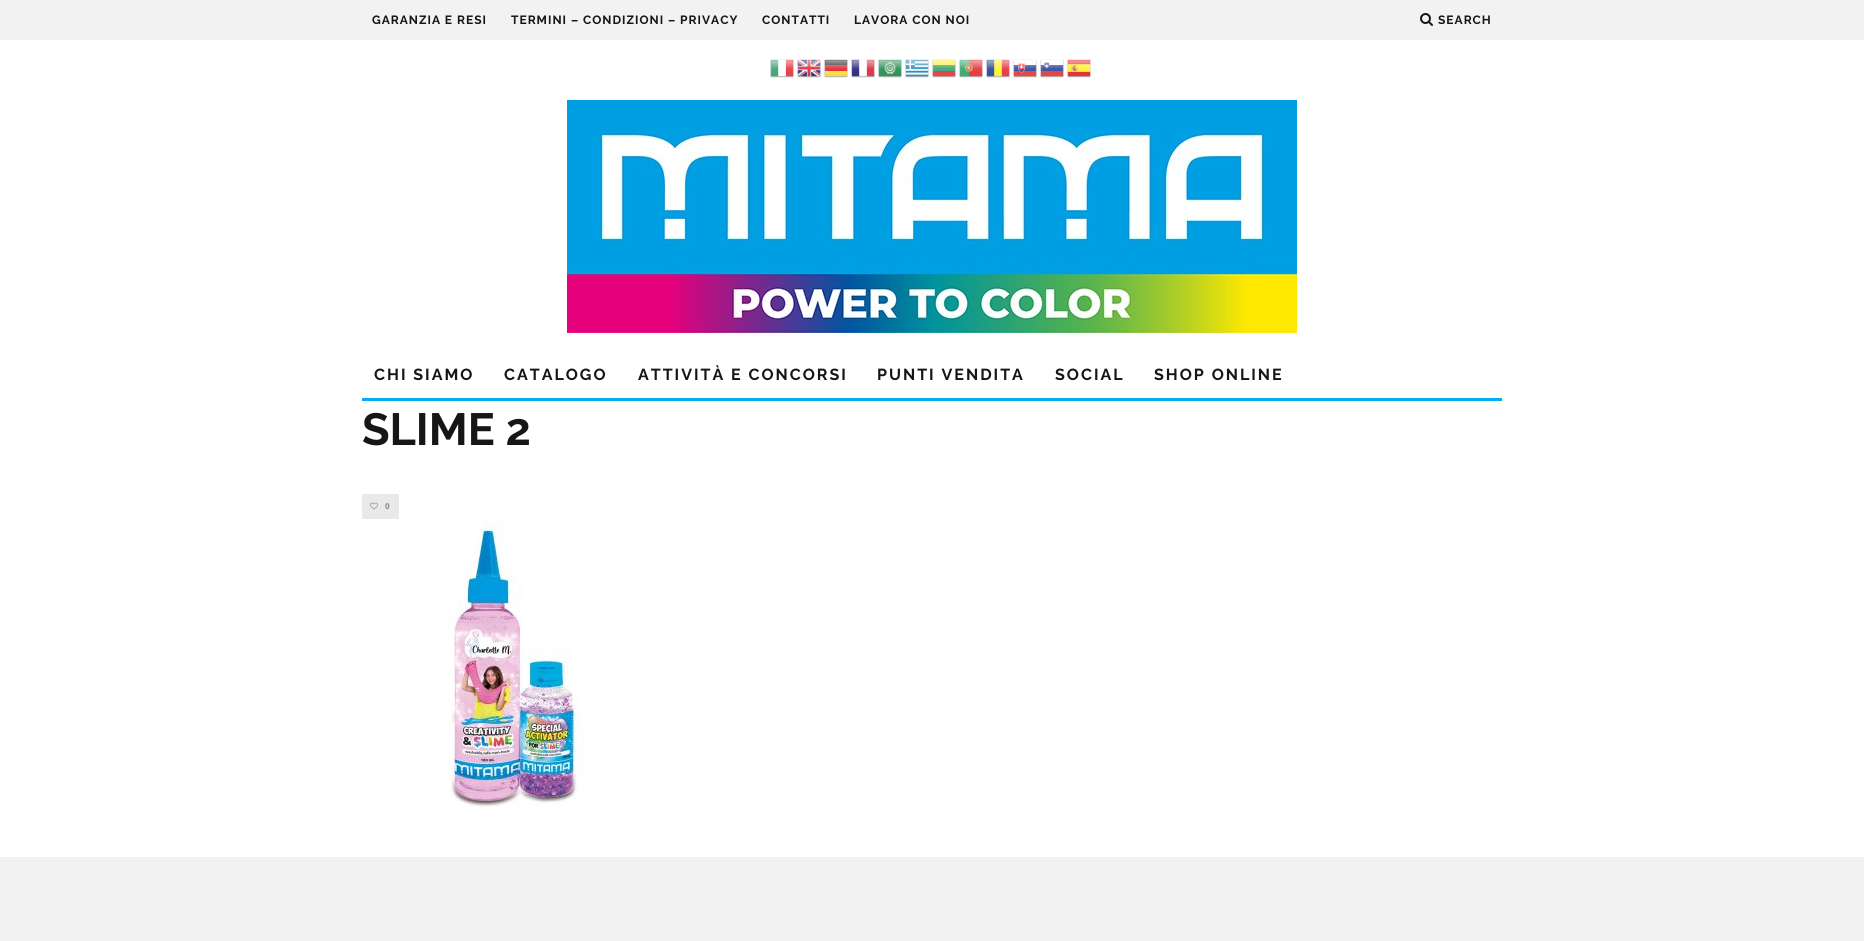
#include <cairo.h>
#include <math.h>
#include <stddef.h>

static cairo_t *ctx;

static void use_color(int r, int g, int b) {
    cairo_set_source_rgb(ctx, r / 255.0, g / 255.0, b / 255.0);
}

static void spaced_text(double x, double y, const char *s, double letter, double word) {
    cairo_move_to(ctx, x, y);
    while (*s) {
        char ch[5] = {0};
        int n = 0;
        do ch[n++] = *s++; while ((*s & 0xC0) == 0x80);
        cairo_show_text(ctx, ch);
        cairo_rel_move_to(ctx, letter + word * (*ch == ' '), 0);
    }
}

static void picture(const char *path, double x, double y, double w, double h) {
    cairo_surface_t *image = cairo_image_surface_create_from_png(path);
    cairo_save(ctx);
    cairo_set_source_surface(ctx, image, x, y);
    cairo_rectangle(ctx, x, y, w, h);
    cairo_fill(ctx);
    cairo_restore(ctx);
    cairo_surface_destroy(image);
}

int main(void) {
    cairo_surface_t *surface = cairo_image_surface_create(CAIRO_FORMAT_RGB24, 1864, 941);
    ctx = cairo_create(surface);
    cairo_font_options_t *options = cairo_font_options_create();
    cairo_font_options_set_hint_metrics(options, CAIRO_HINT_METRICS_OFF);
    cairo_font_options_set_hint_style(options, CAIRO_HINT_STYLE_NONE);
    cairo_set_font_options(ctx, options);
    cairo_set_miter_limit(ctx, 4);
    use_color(255, 255, 255);
    cairo_paint(ctx);
    use_color(242, 242, 242);
    cairo_rectangle(ctx, 0, 0, 1864, 40);
    cairo_fill(ctx);
    cairo_select_font_face(ctx, "Raleway", CAIRO_FONT_SLANT_NORMAL, CAIRO_FONT_WEIGHT_BOLD);
    cairo_set_font_size(ctx, 12);
    use_color(22, 22, 22);
    spaced_text(372, 24, "GARANZIA E RESI", 1, 0);
    spaced_text(511, 24, "TERMINI – CONDIZIONI – PRIVACY", 1, 0);
    spaced_text(762, 24, "CONTATTI", 1, 0);
    spaced_text(854, 24, "LAVORA CON NOI", 1, 0);
    picture("img1.png", 1420, 13, 13, 13);
    spaced_text(1438, 24, "SEARCH", 1, 0);
    picture("img2.png", 770, 59, 24, 19);
    picture("img3.png", 797, 59, 24, 19);
    picture("img4.png", 824, 59, 24, 19);
    picture("img5.png", 851, 59, 24, 19);
    picture("img6.png", 878, 59, 24, 19);
    picture("img7.png", 905, 59, 24, 19);
    picture("img8.png", 932, 59, 24, 19);
    picture("img9.png", 959, 59, 24, 19);
    picture("img10.png", 986, 59, 24, 19);
    picture("img11.png", 1013, 59, 24, 19);
    picture("img12.png", 1040, 59, 24, 19);
    picture("img13.png", 1067, 59, 24, 19);
    picture("img14.png", 567, 100, 730, 233);
    use_color(0, 174, 239);
    cairo_rectangle(ctx, 362, 398, 1140, 3);
    cairo_fill(ctx);
    cairo_set_font_size(ctx, 16);
    use_color(22, 22, 22);
    spaced_text(374, 380, "CHI SIAMO", 2, 0);
    spaced_text(504, 380, "CATALOGO", 2, 0);
    spaced_text(638, 380, "ATTIVITÀ E CONCORSI", 2, 0);
    spaced_text(877, 380, "PUNTI VENDITA", 2, 0);
    spaced_text(1055, 380, "SOCIAL", 2, 0);
    spaced_text(1154, 380, "SHOP ONLINE", 2, 0);
    cairo_set_font_size(ctx, 45);
    cairo_move_to(ctx, 362, 445);
    cairo_show_text(ctx, "SLIME 2");
    use_color(233, 233, 233);
    cairo_rectangle(ctx, 362, 494, 37, 25);
    cairo_fill(ctx);
    picture("img15.png", 370, 502, 8, 8);
    cairo_select_font_face(ctx, "Open Sans", CAIRO_FONT_SLANT_NORMAL, CAIRO_FONT_WEIGHT_BOLD);
    cairo_set_font_size(ctx, 8);
    use_color(134, 134, 134);
    spaced_text(385, 509, "0", 2, 0);
    picture("img16.png", 442, 519, 144, 288);
    use_color(242, 242, 242);
    cairo_rectangle(ctx, 0, 857, 1864, 84);
    cairo_fill(ctx);
    cairo_surface_write_to_png(surface, "result.png");
    cairo_font_options_destroy(options);
    cairo_destroy(ctx);
    cairo_surface_destroy(surface);
    return 0;
}
